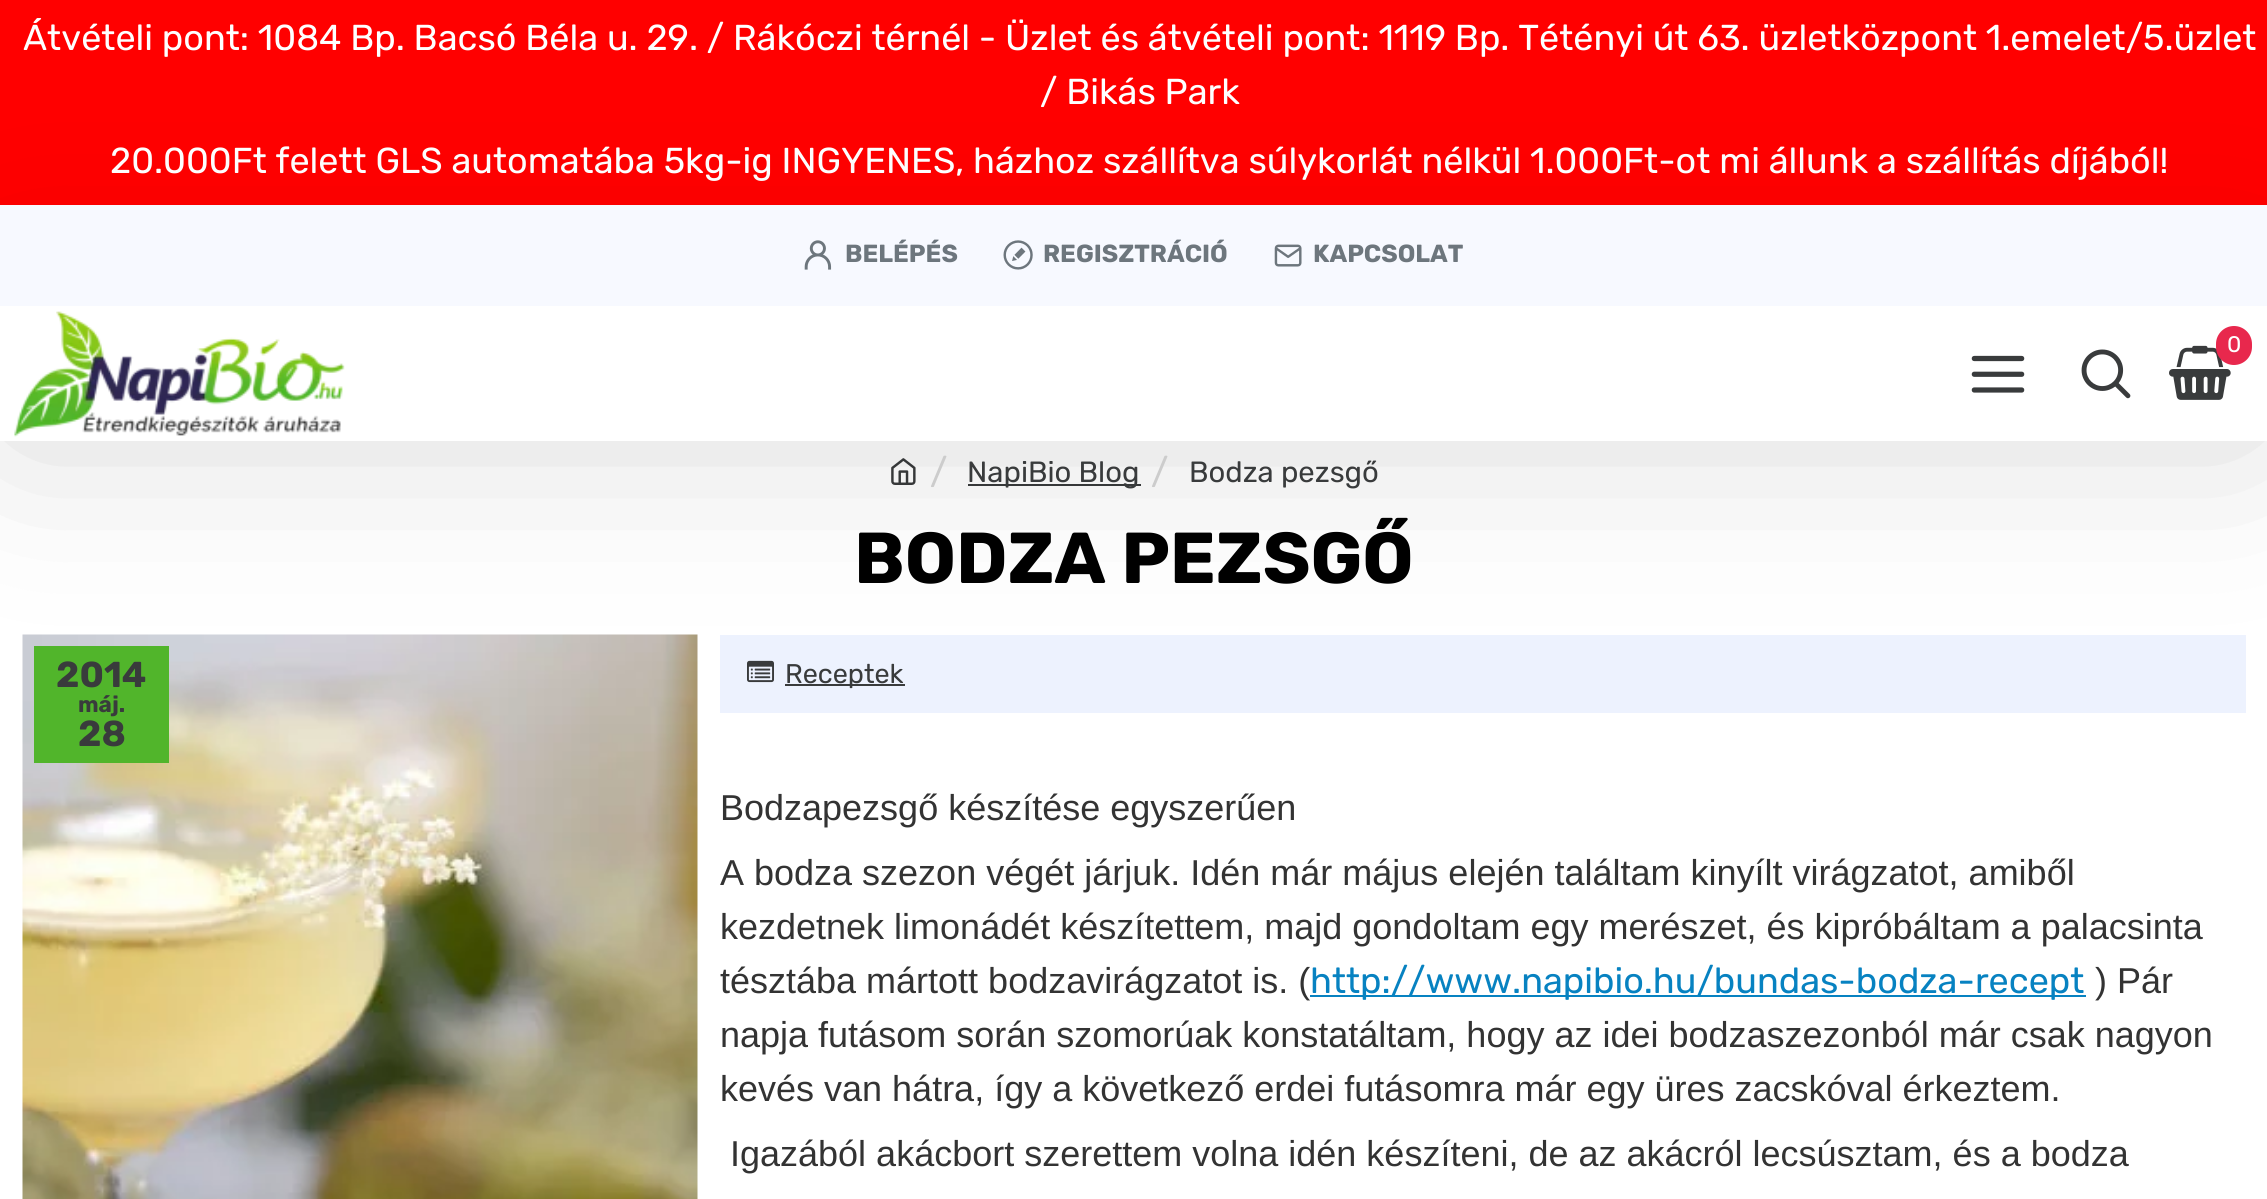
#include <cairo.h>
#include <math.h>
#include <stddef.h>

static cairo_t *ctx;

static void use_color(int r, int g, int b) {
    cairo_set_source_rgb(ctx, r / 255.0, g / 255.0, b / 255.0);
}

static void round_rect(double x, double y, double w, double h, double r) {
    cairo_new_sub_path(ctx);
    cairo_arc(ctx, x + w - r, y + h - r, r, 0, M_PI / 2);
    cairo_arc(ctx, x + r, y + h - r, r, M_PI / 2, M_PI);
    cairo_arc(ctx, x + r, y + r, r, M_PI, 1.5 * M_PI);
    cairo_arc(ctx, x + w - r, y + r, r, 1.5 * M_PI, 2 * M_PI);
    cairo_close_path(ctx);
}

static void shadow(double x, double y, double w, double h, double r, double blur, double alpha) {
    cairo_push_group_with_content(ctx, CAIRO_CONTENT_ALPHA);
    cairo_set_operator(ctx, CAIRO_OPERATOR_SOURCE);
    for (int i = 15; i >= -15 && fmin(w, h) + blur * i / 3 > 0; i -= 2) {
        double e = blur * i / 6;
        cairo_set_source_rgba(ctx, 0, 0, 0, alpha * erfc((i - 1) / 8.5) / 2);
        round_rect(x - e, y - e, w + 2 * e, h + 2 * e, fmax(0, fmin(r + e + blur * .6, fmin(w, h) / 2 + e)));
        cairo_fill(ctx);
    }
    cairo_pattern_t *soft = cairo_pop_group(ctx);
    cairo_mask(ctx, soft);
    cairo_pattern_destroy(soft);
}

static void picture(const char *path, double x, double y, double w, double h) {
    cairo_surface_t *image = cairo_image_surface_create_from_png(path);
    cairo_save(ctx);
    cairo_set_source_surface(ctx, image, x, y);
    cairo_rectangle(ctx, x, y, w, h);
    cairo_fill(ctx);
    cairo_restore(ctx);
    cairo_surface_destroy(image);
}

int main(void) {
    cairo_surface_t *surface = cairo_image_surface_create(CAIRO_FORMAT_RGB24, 2267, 1199);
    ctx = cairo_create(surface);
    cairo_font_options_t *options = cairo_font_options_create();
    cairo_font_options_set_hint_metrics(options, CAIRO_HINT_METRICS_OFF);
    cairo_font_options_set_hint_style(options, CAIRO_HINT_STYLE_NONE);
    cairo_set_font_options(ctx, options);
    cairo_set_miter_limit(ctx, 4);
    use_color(255, 255, 255);
    cairo_paint(ctx);
    use_color(255, 0, 0);
    cairo_rectangle(ctx, 0, 0, 2267, 205);
    cairo_fill(ctx);
    cairo_select_font_face(ctx, "Rubik", CAIRO_FONT_SLANT_NORMAL, CAIRO_FONT_WEIGHT_NORMAL);
    cairo_set_font_size(ctx, 36);
    use_color(255, 255, 255);
    cairo_move_to(ctx, 23, 50);
    cairo_show_text(ctx, "Átvételi pont: 1084 Bp. Bacsó Béla u. 29. / Rákóczi térnél - Üzlet és átvételi pont: 1119 Bp. Tétényi út 63. üzletközpont 1.emelet/5.üzlet");
    cairo_move_to(ctx, 1040, 104);
    cairo_show_text(ctx, "/ Bikás Park");
    cairo_move_to(ctx, 110, 173);
    cairo_show_text(ctx, "20.000Ft felett GLS automatába 5kg-ig INGYENES, házhoz szállítva súlykorlát nélkül 1.000Ft-ot mi állunk a szállítás díjából!");
    picture("img8.png", 891, 458, 25, 27);
    use_color(57, 59, 60);
    cairo_rectangle(ctx, 968, 484, 173, 2);
    cairo_fill(ctx);
    picture("img9.png", 22, 634, 676, 565);
    use_color(81, 181, 43);
    cairo_rectangle(ctx, 34, 646, 135, 117);
    cairo_fill(ctx);
    use_color(237, 242, 254);
    cairo_rectangle(ctx, 720, 635, 1526, 78);
    cairo_fill(ctx);
    picture("img10.png", 747, 660, 27, 23);
    use_color(57, 59, 60);
    cairo_rectangle(ctx, 785, 684, 120, 2);
    cairo_fill(ctx);
    use_color(0, 0, 0);
    shadow(23, 329, 2223, 90, 0, 95.5, 0.2);
    use_color(247, 249, 255);
    cairo_rectangle(ctx, 0, 205, 2267, 101);
    cairo_fill(ctx);
    picture("img1.png", 804, 240, 28, 30);
    cairo_select_font_face(ctx, "Rubik", CAIRO_FONT_SLANT_NORMAL, CAIRO_FONT_WEIGHT_BOLD);
    cairo_set_font_size(ctx, 24.75);
    use_color(109, 118, 125);
    cairo_move_to(ctx, 845, 262);
    cairo_show_text(ctx, "BELÉPÉS");
    picture("img2.png", 1003, 240, 30, 30);
    cairo_move_to(ctx, 1043, 262);
    cairo_show_text(ctx, "REGISZTRÁCIÓ");
    picture("img3.png", 1274, 244, 28, 23);
    cairo_move_to(ctx, 1313, 262);
    cairo_show_text(ctx, "KAPCSOLAT");
    use_color(255, 255, 255);
    cairo_rectangle(ctx, 0, 306, 2267, 135);
    cairo_fill(ctx);
    picture("img4.png", 14, 311, 331, 126);
    picture("img5.png", 2169, 345, 62, 55);
    use_color(232, 40, 77);
    round_rect(2216, 326, 36, 39, 18);
    cairo_fill(ctx);
    cairo_select_font_face(ctx, "Rubik", CAIRO_FONT_SLANT_NORMAL, CAIRO_FONT_WEIGHT_NORMAL);
    cairo_set_font_size(ctx, 22.5);
    use_color(255, 255, 255);
    cairo_move_to(ctx, 2227, 352);
    cairo_show_text(ctx, "0");
    picture("img6.png", 1971, 355, 54, 38);
    picture("img7.png", 2081, 349, 50, 50);
    cairo_set_font_size(ctx, 36);
    use_color(204, 204, 204);
    cairo_move_to(ctx, 930, 484);
    cairo_show_text(ctx, "/");
    cairo_set_font_size(ctx, 29.25);
    use_color(57, 59, 60);
    cairo_move_to(ctx, 967, 482);
    cairo_show_text(ctx, "NapiBio Blog");
    cairo_set_font_size(ctx, 36);
    use_color(204, 204, 204);
    cairo_move_to(ctx, 1151, 484);
    cairo_show_text(ctx, "/");
    cairo_set_font_size(ctx, 29.25);
    use_color(57, 59, 60);
    cairo_move_to(ctx, 1189, 482);
    cairo_show_text(ctx, "Bodza pezsgő");
    cairo_select_font_face(ctx, "Rubik", CAIRO_FONT_SLANT_NORMAL, CAIRO_FONT_WEIGHT_BOLD);
    cairo_set_font_size(ctx, 72);
    use_color(0, 0, 0);
    cairo_move_to(ctx, 854, 583);
    cairo_show_text(ctx, "BODZA PEZSGŐ");
    cairo_set_font_size(ctx, 36);
    use_color(57, 59, 60);
    cairo_move_to(ctx, 56, 687);
    cairo_show_text(ctx, "2014");
    cairo_set_font_size(ctx, 22.5);
    cairo_move_to(ctx, 78, 712);
    cairo_show_text(ctx, "máj.");
    cairo_set_font_size(ctx, 36);
    cairo_move_to(ctx, 78, 746);
    cairo_show_text(ctx, "28");
    cairo_select_font_face(ctx, "Rubik", CAIRO_FONT_SLANT_NORMAL, CAIRO_FONT_WEIGHT_NORMAL);
    cairo_set_font_size(ctx, 27);
    cairo_move_to(ctx, 785, 683);
    cairo_show_text(ctx, "Receptek");
    cairo_select_font_face(ctx, "Liberation Sans", CAIRO_FONT_SLANT_NORMAL, CAIRO_FONT_WEIGHT_NORMAL);
    cairo_set_font_size(ctx, 36);
    use_color(51, 51, 51);
    cairo_move_to(ctx, 720, 820);
    cairo_show_text(ctx, "Bodzapezsgő készítése egyszerűen");
    cairo_move_to(ctx, 720, 885);
    cairo_show_text(ctx, "A bodza szezon végét járjuk. Idén már május elején találtam kinyílt virágzatot, amiből");
    cairo_move_to(ctx, 720, 939);
    cairo_show_text(ctx, "kezdetnek limonádét készítettem, majd gondoltam egy merészet, és kipróbáltam a palacsinta");
    cairo_move_to(ctx, 720, 993);
    cairo_show_text(ctx, "tésztába mártott bodzavirágzatot is. (");
    use_color(7, 130, 193);
    cairo_rectangle(ctx, 1310, 995, 776, 2);
    cairo_fill(ctx);
    cairo_select_font_face(ctx, "Rubik", CAIRO_FONT_SLANT_NORMAL, CAIRO_FONT_WEIGHT_NORMAL);
    cairo_move_to(ctx, 1310, 993);
    cairo_show_text(ctx, "http://www.napibio.hu/bundas-bodza-recept");
    cairo_select_font_face(ctx, "Liberation Sans", CAIRO_FONT_SLANT_NORMAL, CAIRO_FONT_WEIGHT_NORMAL);
    use_color(51, 51, 51);
    cairo_move_to(ctx, 2095, 993);
    cairo_show_text(ctx, ") Pár");
    cairo_move_to(ctx, 720, 1047);
    cairo_show_text(ctx, "napja futásom során szomorúak konstatáltam, hogy az idei bodzaszezonból már csak nagyon");
    cairo_move_to(ctx, 720, 1101);
    cairo_show_text(ctx, "kevés van hátra, így a következő erdei futásomra már egy üres zacskóval érkeztem.");
    cairo_move_to(ctx, 730, 1166);
    cairo_show_text(ctx, "Igazából akácbort szerettem volna idén készíteni, de az akácról lecsúsztam, és a bodza");
    cairo_surface_write_to_png(surface, "result.png");
    cairo_font_options_destroy(options);
    cairo_destroy(ctx);
    cairo_surface_destroy(surface);
    return 0;
}
